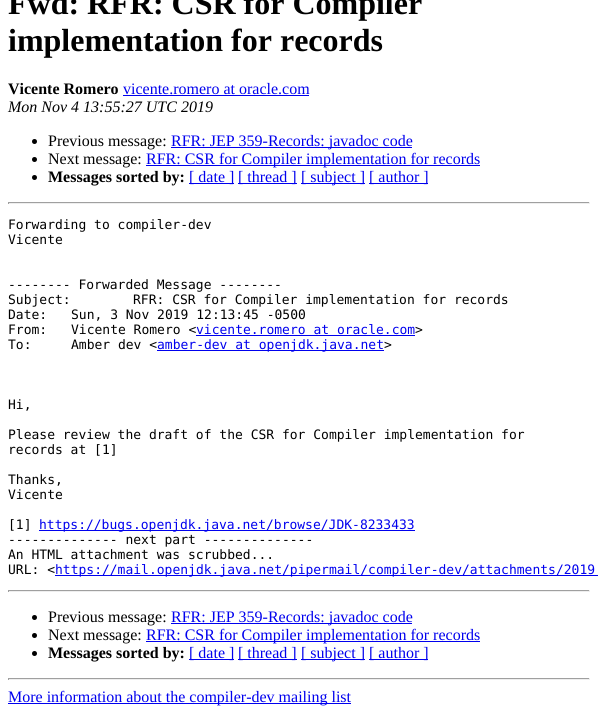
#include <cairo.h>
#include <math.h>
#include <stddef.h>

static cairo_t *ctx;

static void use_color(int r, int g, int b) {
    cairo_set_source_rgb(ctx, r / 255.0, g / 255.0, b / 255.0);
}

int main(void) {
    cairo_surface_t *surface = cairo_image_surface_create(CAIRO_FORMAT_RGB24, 598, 712);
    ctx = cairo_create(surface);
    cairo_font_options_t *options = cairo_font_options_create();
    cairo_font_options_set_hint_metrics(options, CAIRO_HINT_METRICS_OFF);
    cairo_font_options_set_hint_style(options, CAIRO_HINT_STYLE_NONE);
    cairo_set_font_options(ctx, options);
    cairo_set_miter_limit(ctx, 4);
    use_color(255, 255, 255);
    cairo_paint(ctx);
    cairo_select_font_face(ctx, "Liberation Serif", CAIRO_FONT_SLANT_NORMAL, CAIRO_FONT_WEIGHT_BOLD);
    cairo_set_font_size(ctx, 32);
    use_color(0, 0, 0);
    cairo_move_to(ctx, 8, 14);
    cairo_show_text(ctx, "Fwd: RFR: CSR for Compiler");
    cairo_move_to(ctx, 8, 51);
    cairo_show_text(ctx, "implementation for records");
    cairo_set_font_size(ctx, 16);
    cairo_move_to(ctx, 8, 94);
    cairo_show_text(ctx, "Vicente Romero");
    cairo_select_font_face(ctx, "Liberation Serif", CAIRO_FONT_SLANT_NORMAL, CAIRO_FONT_WEIGHT_NORMAL);
    use_color(0, 0, 238);
    cairo_move_to(ctx, 123, 94);
    cairo_show_text(ctx, "vicente.romero at oracle.com");
    cairo_rectangle(ctx, 123, 95, 186, 1);
    cairo_fill(ctx);
    cairo_select_font_face(ctx, "Liberation Serif", CAIRO_FONT_SLANT_ITALIC, CAIRO_FONT_WEIGHT_NORMAL);
    use_color(0, 0, 0);
    cairo_move_to(ctx, 8, 112);
    cairo_show_text(ctx, "Mon Nov 4 13:55:27 UTC 2019");
    cairo_new_path(ctx);
    cairo_arc(ctx, 34.5, 141.5, 2.5, 0, 2 * M_PI);
    cairo_fill(ctx);
    cairo_select_font_face(ctx, "Liberation Serif", CAIRO_FONT_SLANT_NORMAL, CAIRO_FONT_WEIGHT_NORMAL);
    cairo_move_to(ctx, 48, 146);
    cairo_show_text(ctx, "Previous message:");
    use_color(0, 0, 238);
    cairo_rectangle(ctx, 171, 147, 241, 1);
    cairo_fill(ctx);
    cairo_move_to(ctx, 171, 146);
    cairo_show_text(ctx, "RFR: JEP 359-Records: javadoc code");
    use_color(0, 0, 0);
    cairo_new_path(ctx);
    cairo_arc(ctx, 34.5, 159.5, 2.5, 0, 2 * M_PI);
    cairo_fill(ctx);
    cairo_move_to(ctx, 48, 164);
    cairo_show_text(ctx, "Next message:");
    use_color(0, 0, 238);
    cairo_rectangle(ctx, 146, 165, 334, 1);
    cairo_fill(ctx);
    cairo_move_to(ctx, 146, 164);
    cairo_show_text(ctx, "RFR: CSR for Compiler implementation for records");
    use_color(0, 0, 0);
    cairo_new_path(ctx);
    cairo_arc(ctx, 34.5, 177.5, 2.5, 0, 2 * M_PI);
    cairo_fill(ctx);
    cairo_select_font_face(ctx, "Liberation Serif", CAIRO_FONT_SLANT_NORMAL, CAIRO_FONT_WEIGHT_BOLD);
    cairo_move_to(ctx, 48, 182);
    cairo_show_text(ctx, "Messages sorted by:");
    use_color(0, 0, 238);
    cairo_rectangle(ctx, 189, 183, 45, 1);
    cairo_fill(ctx);
    cairo_select_font_face(ctx, "Liberation Serif", CAIRO_FONT_SLANT_NORMAL, CAIRO_FONT_WEIGHT_NORMAL);
    cairo_move_to(ctx, 189, 182);
    cairo_show_text(ctx, "[ date ]");
    cairo_rectangle(ctx, 238, 183, 59, 1);
    cairo_fill(ctx);
    cairo_move_to(ctx, 238, 182);
    cairo_show_text(ctx, "[ thread ]");
    cairo_rectangle(ctx, 301, 183, 64, 1);
    cairo_fill(ctx);
    cairo_move_to(ctx, 301, 182);
    cairo_show_text(ctx, "[ subject ]");
    cairo_rectangle(ctx, 369, 183, 59, 1);
    cairo_fill(ctx);
    cairo_move_to(ctx, 369, 182);
    cairo_show_text(ctx, "[ author ]");
    use_color(159, 159, 159);
    cairo_rectangle(ctx, 8, 202, 582, 1);
    cairo_fill(ctx);
    use_color(238, 238, 238);
    cairo_rectangle(ctx, 589, 202, 1, 2);
    cairo_fill(ctx);
    cairo_rectangle(ctx, 8, 203, 582, 1);
    cairo_fill(ctx);
    use_color(159, 159, 159);
    cairo_rectangle(ctx, 8, 202, 1, 2);
    cairo_fill(ctx);
    cairo_select_font_face(ctx, "DejaVu Sans Mono", CAIRO_FONT_SLANT_NORMAL, CAIRO_FONT_WEIGHT_NORMAL);
    cairo_set_font_size(ctx, 13);
    use_color(0, 0, 0);
    cairo_move_to(ctx, 8, 229);
    cairo_show_text(ctx, "Forwarding to compiler-dev");
    cairo_move_to(ctx, 8, 244);
    cairo_show_text(ctx, "Vicente");
    cairo_move_to(ctx, 8, 289);
    cairo_show_text(ctx, "-------- Forwarded Message --------");
    cairo_move_to(ctx, 8, 304);
    cairo_show_text(ctx, "Subject:");
    cairo_move_to(ctx, 133, 304);
    cairo_show_text(ctx, "RFR: CSR for Compiler implementation for records");
    cairo_move_to(ctx, 8, 319);
    cairo_show_text(ctx, "Date:");
    cairo_move_to(ctx, 71, 319);
    cairo_show_text(ctx, "Sun, 3 Nov 2019 12:13:45 -0500");
    cairo_move_to(ctx, 8, 334);
    cairo_show_text(ctx, "From:");
    cairo_move_to(ctx, 71, 334);
    cairo_show_text(ctx, "Vicente Romero <");
    use_color(0, 0, 238);
    cairo_move_to(ctx, 196, 334);
    cairo_show_text(ctx, "vicente.romero at oracle.com");
    cairo_rectangle(ctx, 196, 335, 219, 1);
    cairo_fill(ctx);
    use_color(0, 0, 0);
    cairo_move_to(ctx, 415, 334);
    cairo_show_text(ctx, ">");
    cairo_move_to(ctx, 8, 349);
    cairo_show_text(ctx, "To:");
    cairo_move_to(ctx, 71, 349);
    cairo_show_text(ctx, "Amber dev <");
    use_color(0, 0, 238);
    cairo_rectangle(ctx, 157, 350, 227, 1);
    cairo_fill(ctx);
    cairo_move_to(ctx, 157, 349);
    cairo_show_text(ctx, "amber-dev at openjdk.java.net");
    use_color(0, 0, 0);
    cairo_move_to(ctx, 384, 349);
    cairo_show_text(ctx, ">");
    cairo_move_to(ctx, 8, 409);
    cairo_show_text(ctx, "Hi,");
    cairo_move_to(ctx, 8, 439);
    cairo_show_text(ctx, "Please review the draft of the CSR for Compiler implementation for");
    cairo_move_to(ctx, 8, 454);
    cairo_show_text(ctx, "records at [1]");
    cairo_move_to(ctx, 8, 484);
    cairo_show_text(ctx, "Thanks,");
    cairo_move_to(ctx, 8, 499);
    cairo_show_text(ctx, "Vicente");
    cairo_move_to(ctx, 8, 529);
    cairo_show_text(ctx, "[1]");
    use_color(0, 0, 238);
    cairo_rectangle(ctx, 39, 530, 376, 1);
    cairo_fill(ctx);
    cairo_move_to(ctx, 39, 529);
    cairo_show_text(ctx, "https://bugs.openjdk.java.net/browse/JDK-8233433");
    use_color(0, 0, 0);
    cairo_move_to(ctx, 8, 544);
    cairo_show_text(ctx, "-------------- next part --------------");
    cairo_move_to(ctx, 8, 559);
    cairo_show_text(ctx, "An HTML attachment was scrubbed...");
    cairo_move_to(ctx, 8, 574);
    cairo_show_text(ctx, "URL: <");
    use_color(0, 0, 238);
    cairo_rectangle(ctx, 55, 575, 543, 1);
    cairo_fill(ctx);
    cairo_move_to(ctx, 55, 574);
    cairo_show_text(ctx, "https://mail.openjdk.java.net/pipermail/compiler-dev/attachments/2019");
    use_color(159, 159, 159);
    cairo_rectangle(ctx, 8, 590, 582, 1);
    cairo_fill(ctx);
    use_color(238, 238, 238);
    cairo_rectangle(ctx, 589, 590, 1, 2);
    cairo_fill(ctx);
    cairo_rectangle(ctx, 8, 591, 582, 1);
    cairo_fill(ctx);
    use_color(159, 159, 159);
    cairo_rectangle(ctx, 8, 590, 1, 2);
    cairo_fill(ctx);
    use_color(0, 0, 0);
    cairo_arc(ctx, 34.5, 617.5, 2.5, 0, 2 * M_PI);
    cairo_fill(ctx);
    cairo_select_font_face(ctx, "Liberation Serif", CAIRO_FONT_SLANT_NORMAL, CAIRO_FONT_WEIGHT_NORMAL);
    cairo_set_font_size(ctx, 16);
    cairo_move_to(ctx, 48, 622);
    cairo_show_text(ctx, "Previous message:");
    use_color(0, 0, 238);
    cairo_rectangle(ctx, 171, 623, 241, 1);
    cairo_fill(ctx);
    cairo_move_to(ctx, 171, 622);
    cairo_show_text(ctx, "RFR: JEP 359-Records: javadoc code");
    use_color(0, 0, 0);
    cairo_new_path(ctx);
    cairo_arc(ctx, 34.5, 635.5, 2.5, 0, 2 * M_PI);
    cairo_fill(ctx);
    cairo_move_to(ctx, 48, 640);
    cairo_show_text(ctx, "Next message:");
    use_color(0, 0, 238);
    cairo_rectangle(ctx, 146, 641, 334, 1);
    cairo_fill(ctx);
    cairo_move_to(ctx, 146, 640);
    cairo_show_text(ctx, "RFR: CSR for Compiler implementation for records");
    use_color(0, 0, 0);
    cairo_new_path(ctx);
    cairo_arc(ctx, 34.5, 653.5, 2.5, 0, 2 * M_PI);
    cairo_fill(ctx);
    cairo_select_font_face(ctx, "Liberation Serif", CAIRO_FONT_SLANT_NORMAL, CAIRO_FONT_WEIGHT_BOLD);
    cairo_move_to(ctx, 48, 658);
    cairo_show_text(ctx, "Messages sorted by:");
    use_color(0, 0, 238);
    cairo_rectangle(ctx, 189, 659, 45, 1);
    cairo_fill(ctx);
    cairo_select_font_face(ctx, "Liberation Serif", CAIRO_FONT_SLANT_NORMAL, CAIRO_FONT_WEIGHT_NORMAL);
    cairo_move_to(ctx, 189, 658);
    cairo_show_text(ctx, "[ date ]");
    cairo_rectangle(ctx, 238, 659, 59, 1);
    cairo_fill(ctx);
    cairo_move_to(ctx, 238, 658);
    cairo_show_text(ctx, "[ thread ]");
    cairo_rectangle(ctx, 301, 659, 64, 1);
    cairo_fill(ctx);
    cairo_move_to(ctx, 301, 658);
    cairo_show_text(ctx, "[ subject ]");
    cairo_rectangle(ctx, 369, 659, 59, 1);
    cairo_fill(ctx);
    cairo_move_to(ctx, 369, 658);
    cairo_show_text(ctx, "[ author ]");
    use_color(159, 159, 159);
    cairo_rectangle(ctx, 8, 678, 582, 1);
    cairo_fill(ctx);
    use_color(238, 238, 238);
    cairo_rectangle(ctx, 589, 678, 1, 2);
    cairo_fill(ctx);
    cairo_rectangle(ctx, 8, 679, 582, 1);
    cairo_fill(ctx);
    use_color(159, 159, 159);
    cairo_rectangle(ctx, 8, 678, 1, 2);
    cairo_fill(ctx);
    use_color(0, 0, 238);
    cairo_rectangle(ctx, 8, 703, 343, 1);
    cairo_fill(ctx);
    cairo_move_to(ctx, 8, 702);
    cairo_show_text(ctx, "More information about the compiler-dev mailing list");
    cairo_surface_write_to_png(surface, "result.png");
    cairo_font_options_destroy(options);
    cairo_destroy(ctx);
    cairo_surface_destroy(surface);
    return 0;
}
